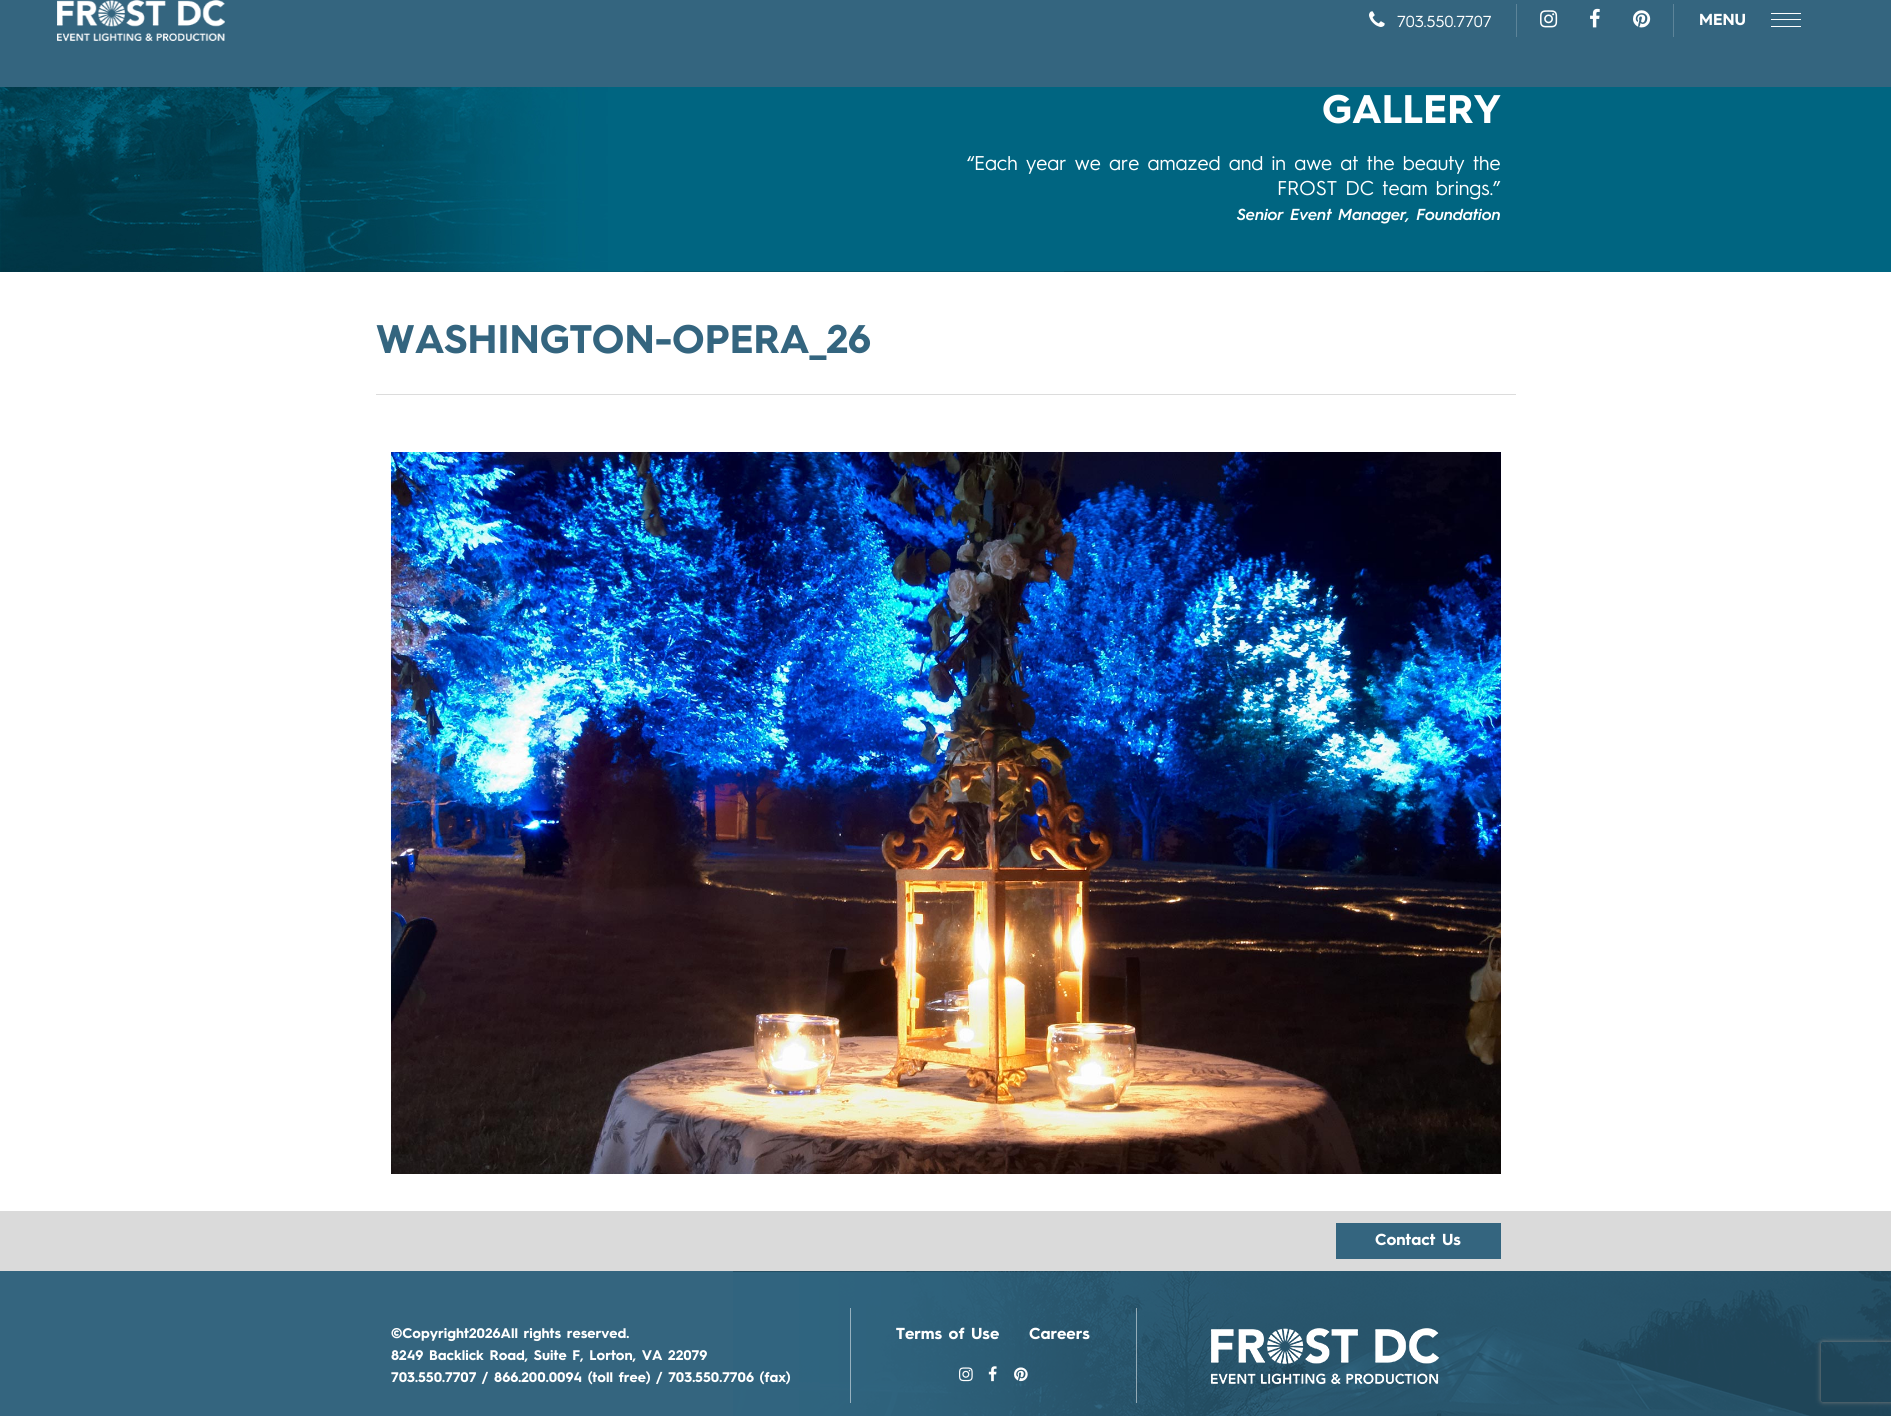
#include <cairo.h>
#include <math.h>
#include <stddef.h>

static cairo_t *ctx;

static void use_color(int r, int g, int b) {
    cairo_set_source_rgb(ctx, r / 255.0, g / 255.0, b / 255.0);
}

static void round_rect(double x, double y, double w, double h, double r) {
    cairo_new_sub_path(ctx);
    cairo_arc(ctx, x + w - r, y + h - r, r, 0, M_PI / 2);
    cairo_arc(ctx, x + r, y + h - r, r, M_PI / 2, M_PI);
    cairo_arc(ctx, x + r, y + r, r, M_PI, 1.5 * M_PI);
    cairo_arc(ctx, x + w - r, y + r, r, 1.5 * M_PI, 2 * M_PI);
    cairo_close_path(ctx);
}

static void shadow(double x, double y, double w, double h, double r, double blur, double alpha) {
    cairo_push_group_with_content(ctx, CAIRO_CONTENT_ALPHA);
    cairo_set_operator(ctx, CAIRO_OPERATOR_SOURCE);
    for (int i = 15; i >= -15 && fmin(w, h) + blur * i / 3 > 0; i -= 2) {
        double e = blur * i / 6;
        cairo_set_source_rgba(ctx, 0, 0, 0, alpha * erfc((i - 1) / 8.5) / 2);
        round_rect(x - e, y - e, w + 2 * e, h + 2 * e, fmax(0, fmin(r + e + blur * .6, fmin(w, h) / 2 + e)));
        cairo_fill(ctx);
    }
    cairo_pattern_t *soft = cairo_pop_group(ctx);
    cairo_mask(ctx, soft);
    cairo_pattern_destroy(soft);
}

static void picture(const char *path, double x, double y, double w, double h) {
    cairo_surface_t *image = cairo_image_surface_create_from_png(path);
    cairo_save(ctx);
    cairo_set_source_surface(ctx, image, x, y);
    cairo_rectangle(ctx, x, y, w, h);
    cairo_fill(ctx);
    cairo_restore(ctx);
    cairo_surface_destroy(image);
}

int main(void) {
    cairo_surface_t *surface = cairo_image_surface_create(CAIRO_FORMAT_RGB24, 1891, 1416);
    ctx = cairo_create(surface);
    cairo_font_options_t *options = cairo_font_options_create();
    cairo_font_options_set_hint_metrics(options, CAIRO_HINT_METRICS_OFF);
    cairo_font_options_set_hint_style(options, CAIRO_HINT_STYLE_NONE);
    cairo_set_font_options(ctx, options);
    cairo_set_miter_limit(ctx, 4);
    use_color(255, 255, 255);
    cairo_paint(ctx);
    use_color(52, 101, 127);
    cairo_rectangle(ctx, 0, 0, 1891, 87);
    cairo_fill(ctx);
    picture("img1.png", 57, 0, 168, 41);
    picture("img2.png", 1369, 11, 16, 16);
    cairo_select_font_face(ctx, "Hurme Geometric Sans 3", CAIRO_FONT_SLANT_NORMAL, CAIRO_FONT_WEIGHT_NORMAL);
    cairo_set_font_size(ctx, 16);
    use_color(255, 255, 255);
    cairo_move_to(ctx, 1397, 27);
    cairo_show_text(ctx, "703.550.7707");
    use_color(93, 132, 153);
    cairo_rectangle(ctx, 1516, 4, 1, 33);
    cairo_fill(ctx);
    picture("img3.png", 1540, 10, 18, 18);
    picture("img4.png", 1590, 8, 10, 20);
    picture("img5.png", 1633, 10, 18, 18);
    cairo_rectangle(ctx, 1673, 4, 1, 33);
    cairo_fill(ctx);
    cairo_select_font_face(ctx, "Hurme Geometric Sans 3", CAIRO_FONT_SLANT_NORMAL, CAIRO_FONT_WEIGHT_BOLD);
    use_color(255, 255, 255);
    cairo_move_to(ctx, 1699, 25);
    cairo_show_text(ctx, "MENU");
    cairo_rectangle(ctx, 1771, 13, 30, 1);
    cairo_fill(ctx);
    cairo_rectangle(ctx, 1771, 19, 30, 1);
    cairo_fill(ctx);
    cairo_rectangle(ctx, 1771, 26, 30, 1);
    cairo_fill(ctx);
    use_color(0, 101, 129);
    cairo_rectangle(ctx, 1550, 87, 341, 185);
    cairo_fill(ctx);
    picture("img6.png", 0, 87, 1550, 185);
    cairo_set_font_size(ctx, 40);
    use_color(255, 255, 255);
    cairo_move_to(ctx, 1322, 123);
    cairo_show_text(ctx, "GALLERY");
    cairo_select_font_face(ctx, "Hurme Geometric Sans 3", CAIRO_FONT_SLANT_NORMAL, CAIRO_FONT_WEIGHT_NORMAL);
    cairo_set_font_size(ctx, 20);
    cairo_move_to(ctx, 967, 170);
    cairo_show_text(ctx, "“Each year we are amazed and in awe at the beauty the");
    cairo_move_to(ctx, 1277, 195);
    cairo_show_text(ctx, "FROST DC team brings.”");
    cairo_select_font_face(ctx, "Hurme Geometric Sans 3 SemiBold", CAIRO_FONT_SLANT_ITALIC, CAIRO_FONT_WEIGHT_NORMAL);
    cairo_set_font_size(ctx, 16);
    cairo_move_to(ctx, 1237, 220);
    cairo_show_text(ctx, "Senior Event Manager, Foundation");
    use_color(220, 220, 220);
    cairo_rectangle(ctx, 376, 394, 1140, 1);
    cairo_fill(ctx);
    cairo_select_font_face(ctx, "Hurme Geometric Sans 3", CAIRO_FONT_SLANT_NORMAL, CAIRO_FONT_WEIGHT_BOLD);
    cairo_set_font_size(ctx, 40);
    use_color(52, 101, 127);
    cairo_move_to(ctx, 376, 353);
    cairo_show_text(ctx, "WASHINGTON-OPERA_26");
    picture("img7.png", 391, 452, 1110, 722);
    use_color(218, 218, 218);
    cairo_rectangle(ctx, 0, 1211, 1891, 60);
    cairo_fill(ctx);
    use_color(52, 101, 127);
    cairo_rectangle(ctx, 1336, 1223, 165, 36);
    cairo_fill(ctx);
    cairo_set_font_size(ctx, 16);
    use_color(255, 255, 255);
    cairo_move_to(ctx, 1375, 1245);
    cairo_show_text(ctx, "Contact Us");
    use_color(52, 101, 127);
    cairo_rectangle(ctx, 0, 1271, 733, 145);
    cairo_fill(ctx);
    picture("img8.png", 733, 1271, 1158, 145);
    cairo_set_font_size(ctx, 14);
    use_color(255, 255, 255);
    cairo_move_to(ctx, 391, 1338);
    cairo_show_text(ctx, "©Copyright2026All rights reserved.");
    use_color(151, 177, 191);
    cairo_rectangle(ctx, 850, 1308, 1, 95);
    cairo_fill(ctx);
    use_color(255, 255, 255);
    cairo_move_to(ctx, 391, 1360);
    cairo_show_text(ctx, "8249 Backlick Road, Suite F, Lorton, VA 22079");
    cairo_move_to(ctx, 391, 1382);
    cairo_show_text(ctx, "703.550.7707 / 866.200.0094 (toll free) / 703.550.7706 (fax)");
    cairo_set_font_size(ctx, 16);
    cairo_move_to(ctx, 896, 1339);
    cairo_show_text(ctx, "Terms of Use");
    cairo_move_to(ctx, 1029, 1339);
    cairo_show_text(ctx, "Careers");
    picture("img9.png", 959, 1367, 14, 15);
    picture("img10.png", 988, 1366, 9, 16);
    picture("img11.png", 1014, 1367, 14, 15);
    cairo_set_source_rgba(ctx, 1, 1, 1, 0.5);
    cairo_rectangle(ctx, 1136, 1308, 1, 95);
    cairo_fill(ctx);
    picture("img12.png", 1211, 1328, 228, 56);
    cairo_save(ctx);
    cairo_set_fill_rule(ctx, CAIRO_FILL_RULE_EVEN_ODD);
    cairo_new_path(ctx);
    cairo_move_to(ctx, 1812, 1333);
    cairo_line_to(ctx, 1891, 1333);
    cairo_line_to(ctx, 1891, 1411);
    cairo_line_to(ctx, 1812, 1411);
    cairo_close_path(ctx);
    cairo_move_to(ctx, 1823, 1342);
    cairo_line_to(ctx, 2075, 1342);
    cairo_curve_to(ctx, 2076, 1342, 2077, 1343, 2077, 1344);
    cairo_line_to(ctx, 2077, 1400);
    cairo_curve_to(ctx, 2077, 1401, 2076, 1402, 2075, 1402);
    cairo_line_to(ctx, 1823, 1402);
    cairo_curve_to(ctx, 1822, 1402, 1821, 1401, 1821, 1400);
    cairo_line_to(ctx, 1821, 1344);
    cairo_curve_to(ctx, 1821, 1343, 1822, 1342, 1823, 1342);
    cairo_close_path(ctx);
    cairo_clip(ctx);
    use_color(128, 128, 128);
    shadow(1821, 1342, 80, 60, 2, 2.5, 1);
    cairo_restore(ctx);
    cairo_surface_write_to_png(surface, "result.png");
    cairo_font_options_destroy(options);
    cairo_destroy(ctx);
    cairo_surface_destroy(surface);
    return 0;
}
